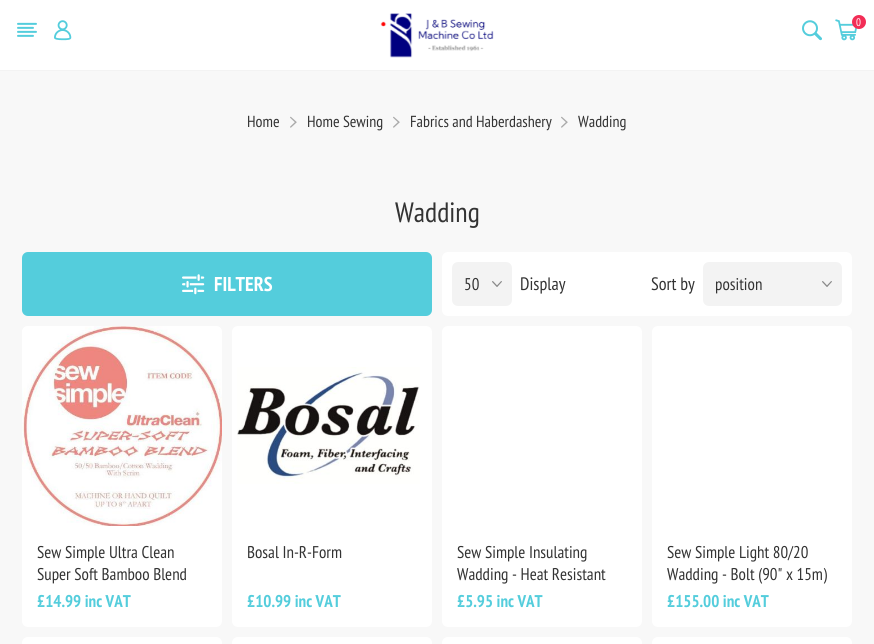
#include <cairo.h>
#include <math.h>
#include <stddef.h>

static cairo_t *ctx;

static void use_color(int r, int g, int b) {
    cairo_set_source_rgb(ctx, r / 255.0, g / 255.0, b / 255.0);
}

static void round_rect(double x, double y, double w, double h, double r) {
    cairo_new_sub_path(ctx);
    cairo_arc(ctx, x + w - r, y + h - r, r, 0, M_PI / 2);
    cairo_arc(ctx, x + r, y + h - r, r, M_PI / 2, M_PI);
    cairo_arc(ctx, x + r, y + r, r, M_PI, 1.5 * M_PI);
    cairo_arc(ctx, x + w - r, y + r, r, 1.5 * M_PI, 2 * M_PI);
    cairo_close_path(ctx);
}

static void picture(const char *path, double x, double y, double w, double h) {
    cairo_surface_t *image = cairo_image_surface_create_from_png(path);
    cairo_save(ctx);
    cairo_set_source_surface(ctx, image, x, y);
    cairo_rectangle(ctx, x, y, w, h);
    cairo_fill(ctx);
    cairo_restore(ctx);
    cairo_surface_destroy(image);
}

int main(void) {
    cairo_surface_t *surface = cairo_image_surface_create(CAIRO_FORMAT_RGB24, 874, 644);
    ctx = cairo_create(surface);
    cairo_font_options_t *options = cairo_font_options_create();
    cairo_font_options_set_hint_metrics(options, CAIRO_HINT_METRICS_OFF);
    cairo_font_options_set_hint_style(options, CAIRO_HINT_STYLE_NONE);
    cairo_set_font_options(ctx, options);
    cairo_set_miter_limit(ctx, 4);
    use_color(248, 248, 248);
    cairo_paint(ctx);
    use_color(255, 255, 255);
    cairo_rectangle(ctx, 0, 0, 874, 70);
    cairo_fill(ctx);
    use_color(243, 243, 243);
    cairo_rectangle(ctx, 0, 70, 874, 1);
    cairo_fill(ctx);
    picture("img1.png", 17, 22, 20, 15);
    picture("img2.png", 54, 20, 18, 21);
    picture("img3.png", 380, 13, 114, 45);
    picture("img4.png", 802, 20, 20, 21);
    picture("img5.png", 835, 19, 22, 22);
    use_color(242, 45, 86);
    cairo_arc(ctx, 859, 22, 7, 0, 2 * M_PI);
    cairo_fill(ctx);
    cairo_select_font_face(ctx, "PT Sans Narrow", CAIRO_FONT_SLANT_NORMAL, CAIRO_FONT_WEIGHT_NORMAL);
    cairo_set_font_size(ctx, 11);
    use_color(255, 255, 255);
    cairo_move_to(ctx, 856, 26);
    cairo_show_text(ctx, "0");
    cairo_set_font_size(ctx, 16);
    use_color(51, 51, 51);
    cairo_move_to(ctx, 247, 127);
    cairo_show_text(ctx, "Home");
    picture("img6.png", 290, 116, 7, 12);
    cairo_move_to(ctx, 307, 127);
    cairo_show_text(ctx, "Home Sewing");
    picture("img6.png", 393, 116, 7, 12);
    cairo_move_to(ctx, 410, 127);
    cairo_show_text(ctx, "Fabrics and Haberdashery");
    picture("img6.png", 561, 116, 7, 12);
    cairo_move_to(ctx, 578, 127);
    cairo_show_text(ctx, "Wadding");
    cairo_set_font_size(ctx, 28);
    cairo_move_to(ctx, 395, 222);
    cairo_show_text(ctx, "Wadding");
    use_color(84, 205, 220);
    round_rect(22, 252, 410, 64, 6);
    cairo_fill(ctx);
    picture("img7.png", 182, 274, 23, 21);
    cairo_select_font_face(ctx, "PT Sans Narrow", CAIRO_FONT_SLANT_NORMAL, CAIRO_FONT_WEIGHT_BOLD);
    cairo_set_font_size(ctx, 20);
    use_color(255, 255, 255);
    cairo_move_to(ctx, 214, 291);
    cairo_show_text(ctx, "FILTERS");
    round_rect(442, 252, 410, 64, 6);
    cairo_fill(ctx);
    use_color(243, 243, 243);
    round_rect(452, 262, 60, 44, 6);
    cairo_fill(ctx);
    picture("img8.png", 492, 281, 10, 6);
    cairo_select_font_face(ctx, "PT Sans Narrow", CAIRO_FONT_SLANT_NORMAL, CAIRO_FONT_WEIGHT_NORMAL);
    cairo_set_font_size(ctx, 17);
    use_color(51, 51, 51);
    cairo_move_to(ctx, 464, 290);
    cairo_show_text(ctx, "50");
    cairo_set_font_size(ctx, 18);
    cairo_move_to(ctx, 520, 290);
    cairo_show_text(ctx, "Display");
    cairo_move_to(ctx, 651, 290);
    cairo_show_text(ctx, "Sort by");
    use_color(243, 243, 243);
    round_rect(703, 262, 139, 44, 6);
    cairo_fill(ctx);
    picture("img8.png", 822, 281, 10, 6);
    cairo_set_font_size(ctx, 17);
    use_color(51, 51, 51);
    cairo_move_to(ctx, 715, 290);
    cairo_show_text(ctx, "position");
    use_color(255, 255, 255);
    round_rect(22, 326, 200, 301, 6);
    cairo_fill(ctx);
    picture("img9.png", 22, 326, 200, 200);
    use_color(51, 51, 51);
    cairo_move_to(ctx, 37, 558);
    cairo_show_text(ctx, "Sew Simple Ultra Clean");
    cairo_move_to(ctx, 37, 580);
    cairo_show_text(ctx, "Super Soft Bamboo Blend");
    cairo_select_font_face(ctx, "PT Sans Narrow", CAIRO_FONT_SLANT_NORMAL, CAIRO_FONT_WEIGHT_BOLD);
    use_color(84, 205, 220);
    cairo_move_to(ctx, 37, 607);
    cairo_show_text(ctx, "£14.99 inc VAT");
    use_color(255, 255, 255);
    round_rect(232, 326, 200, 301, 6);
    cairo_fill(ctx);
    picture("img10.png", 237, 367, 183, 117);
    cairo_select_font_face(ctx, "PT Sans Narrow", CAIRO_FONT_SLANT_NORMAL, CAIRO_FONT_WEIGHT_NORMAL);
    use_color(51, 51, 51);
    cairo_move_to(ctx, 247, 558);
    cairo_show_text(ctx, "Bosal In-R-Form");
    cairo_select_font_face(ctx, "PT Sans Narrow", CAIRO_FONT_SLANT_NORMAL, CAIRO_FONT_WEIGHT_BOLD);
    use_color(84, 205, 220);
    cairo_move_to(ctx, 247, 607);
    cairo_show_text(ctx, "£10.99 inc VAT");
    use_color(255, 255, 255);
    round_rect(442, 326, 200, 301, 6);
    cairo_fill(ctx);
    cairo_select_font_face(ctx, "PT Sans Narrow", CAIRO_FONT_SLANT_NORMAL, CAIRO_FONT_WEIGHT_NORMAL);
    use_color(51, 51, 51);
    cairo_move_to(ctx, 457, 558);
    cairo_show_text(ctx, "Sew Simple Insulating");
    cairo_move_to(ctx, 457, 580);
    cairo_show_text(ctx, "Wadding - Heat Resistant");
    cairo_select_font_face(ctx, "PT Sans Narrow", CAIRO_FONT_SLANT_NORMAL, CAIRO_FONT_WEIGHT_BOLD);
    use_color(84, 205, 220);
    cairo_move_to(ctx, 457, 607);
    cairo_show_text(ctx, "£5.95 inc VAT");
    use_color(255, 255, 255);
    round_rect(652, 326, 200, 301, 6);
    cairo_fill(ctx);
    cairo_select_font_face(ctx, "PT Sans Narrow", CAIRO_FONT_SLANT_NORMAL, CAIRO_FONT_WEIGHT_NORMAL);
    use_color(51, 51, 51);
    cairo_move_to(ctx, 667, 558);
    cairo_show_text(ctx, "Sew Simple Light 80/20");
    cairo_move_to(ctx, 667, 580);
    cairo_show_text(ctx, "Wadding - Bolt (90\" x 15m)");
    cairo_select_font_face(ctx, "PT Sans Narrow", CAIRO_FONT_SLANT_NORMAL, CAIRO_FONT_WEIGHT_BOLD);
    use_color(84, 205, 220);
    cairo_move_to(ctx, 667, 607);
    cairo_show_text(ctx, "£155.00 inc VAT");
    use_color(255, 255, 255);
    cairo_new_path(ctx);
    cairo_move_to(ctx, 28, 637);
    cairo_line_to(ctx, 216, 637);
    cairo_curve_to(ctx, 219.5, 637, 222, 639.5, 222, 643);
    cairo_line_to(ctx, 222, 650);
    cairo_line_to(ctx, 22, 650);
    cairo_line_to(ctx, 22, 643);
    cairo_curve_to(ctx, 22, 639.5, 24.5, 637, 28, 637);
    cairo_close_path(ctx);
    cairo_fill(ctx);
    cairo_new_path(ctx);
    cairo_move_to(ctx, 238, 637);
    cairo_line_to(ctx, 426, 637);
    cairo_curve_to(ctx, 429.5, 637, 432, 639.5, 432, 643);
    cairo_line_to(ctx, 432, 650);
    cairo_line_to(ctx, 232, 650);
    cairo_line_to(ctx, 232, 643);
    cairo_curve_to(ctx, 232, 639.5, 234.5, 637, 238, 637);
    cairo_close_path(ctx);
    cairo_fill(ctx);
    cairo_new_path(ctx);
    cairo_move_to(ctx, 448, 637);
    cairo_line_to(ctx, 636, 637);
    cairo_curve_to(ctx, 639.5, 637, 642, 639.5, 642, 643);
    cairo_line_to(ctx, 642, 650);
    cairo_line_to(ctx, 442, 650);
    cairo_line_to(ctx, 442, 643);
    cairo_curve_to(ctx, 442, 639.5, 444.5, 637, 448, 637);
    cairo_close_path(ctx);
    cairo_fill(ctx);
    cairo_new_path(ctx);
    cairo_move_to(ctx, 658, 637);
    cairo_line_to(ctx, 846, 637);
    cairo_curve_to(ctx, 849.5, 637, 852, 639.5, 852, 643);
    cairo_line_to(ctx, 852, 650);
    cairo_line_to(ctx, 652, 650);
    cairo_line_to(ctx, 652, 643);
    cairo_curve_to(ctx, 652, 639.5, 654.5, 637, 658, 637);
    cairo_close_path(ctx);
    cairo_fill(ctx);
    cairo_surface_write_to_png(surface, "result.png");
    cairo_font_options_destroy(options);
    cairo_destroy(ctx);
    cairo_surface_destroy(surface);
    return 0;
}
